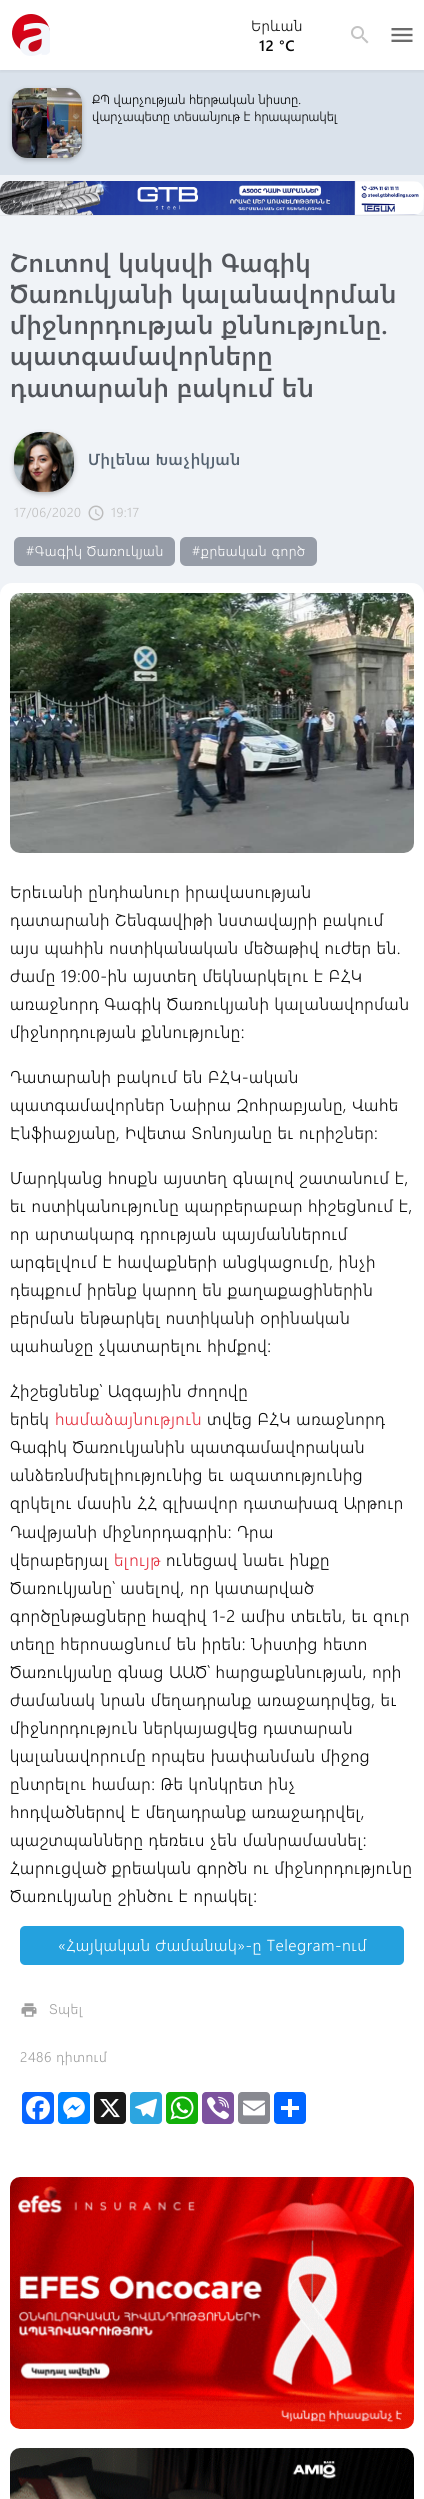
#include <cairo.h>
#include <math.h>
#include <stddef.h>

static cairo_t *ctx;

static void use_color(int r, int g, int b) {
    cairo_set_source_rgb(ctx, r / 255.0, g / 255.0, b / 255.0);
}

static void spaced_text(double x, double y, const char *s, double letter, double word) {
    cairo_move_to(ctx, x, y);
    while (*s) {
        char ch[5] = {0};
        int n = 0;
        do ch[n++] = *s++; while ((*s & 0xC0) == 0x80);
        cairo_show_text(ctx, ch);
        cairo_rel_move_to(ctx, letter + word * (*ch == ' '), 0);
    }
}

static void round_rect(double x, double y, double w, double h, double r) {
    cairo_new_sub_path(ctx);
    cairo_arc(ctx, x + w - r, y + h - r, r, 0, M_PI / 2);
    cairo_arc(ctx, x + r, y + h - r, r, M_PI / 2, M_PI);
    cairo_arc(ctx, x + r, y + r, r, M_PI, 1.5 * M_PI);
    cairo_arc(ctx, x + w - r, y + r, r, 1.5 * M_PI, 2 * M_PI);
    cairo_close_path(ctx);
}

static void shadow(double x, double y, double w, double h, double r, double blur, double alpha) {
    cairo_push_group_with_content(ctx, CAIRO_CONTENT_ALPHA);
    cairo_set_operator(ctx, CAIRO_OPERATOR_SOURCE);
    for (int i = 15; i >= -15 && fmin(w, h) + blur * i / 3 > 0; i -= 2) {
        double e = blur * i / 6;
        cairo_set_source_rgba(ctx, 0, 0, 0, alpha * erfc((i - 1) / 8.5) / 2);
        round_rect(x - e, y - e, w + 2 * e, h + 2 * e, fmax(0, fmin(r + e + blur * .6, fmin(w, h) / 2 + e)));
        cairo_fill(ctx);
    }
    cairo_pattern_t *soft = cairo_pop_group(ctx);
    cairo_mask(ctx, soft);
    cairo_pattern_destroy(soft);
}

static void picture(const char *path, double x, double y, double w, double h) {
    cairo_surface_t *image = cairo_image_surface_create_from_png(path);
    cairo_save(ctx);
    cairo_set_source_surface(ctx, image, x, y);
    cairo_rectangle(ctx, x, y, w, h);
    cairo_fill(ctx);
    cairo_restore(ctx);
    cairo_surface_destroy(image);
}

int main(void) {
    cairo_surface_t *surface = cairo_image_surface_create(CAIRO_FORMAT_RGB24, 424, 2499);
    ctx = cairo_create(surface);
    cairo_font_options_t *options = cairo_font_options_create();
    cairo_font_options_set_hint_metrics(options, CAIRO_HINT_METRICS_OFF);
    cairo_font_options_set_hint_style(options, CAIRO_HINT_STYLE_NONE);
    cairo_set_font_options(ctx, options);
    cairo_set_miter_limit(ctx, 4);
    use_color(255, 255, 255);
    cairo_paint(ctx);
    use_color(218, 226, 235);
    cairo_rectangle(ctx, 0, 70, 424, 105);
    cairo_fill(ctx);
    cairo_save(ctx);
    cairo_rectangle(ctx, 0, 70, 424, 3);
    cairo_clip(ctx);
    use_color(0, 0, 0);
    shadow(0, 2, 424, 70, 0, 2, 0.06);
    cairo_restore(ctx);
    picture("img1.png", 12, 14, 38, 42);
    cairo_select_font_face(ctx, "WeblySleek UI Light", CAIRO_FONT_SLANT_NORMAL, CAIRO_FONT_WEIGHT_NORMAL);
    cairo_set_font_size(ctx, 15);
    use_color(8, 8, 8);
    spaced_text(251, 31, "Երևան", 0.5, 0);
    cairo_select_font_face(ctx, "WeblySleek UI SemiBold", CAIRO_FONT_SLANT_NORMAL, CAIRO_FONT_WEIGHT_NORMAL);
    spaced_text(259, 51, "12 °C", 0.5, 0);
    picture("img2.png", 351, 26, 18, 18);
    picture("img3.png", 391, 28, 22, 14);
    use_color(240, 243, 247);
    cairo_rectangle(ctx, 0, 175, 424, 420);
    cairo_fill(ctx);
    use_color(0, 0, 0);
    shadow(12, 90, 70, 70, 15, 2.5, 0.26);
    picture("img4.png", 12, 88, 70, 70);
    cairo_select_font_face(ctx, "WeblySleek UI Light", CAIRO_FONT_SLANT_NORMAL, CAIRO_FONT_WEIGHT_NORMAL);
    cairo_set_font_size(ctx, 13);
    use_color(0, 0, 0);
    cairo_move_to(ctx, 92, 104);
    cairo_show_text(ctx, "ՔՊ վարչության հերթական նիստը.");
    cairo_move_to(ctx, 92, 121);
    cairo_show_text(ctx, "վարչապետը տեսանյութ է հրապարակել");
    picture("img5.png", 0, 181, 424, 34);
    use_color(228, 231, 235);
    cairo_rectangle(ctx, 0, 215, 424, 1);
    cairo_fill(ctx);
    cairo_select_font_face(ctx, "WeblySleek UI SemiBold", CAIRO_FONT_SLANT_NORMAL, CAIRO_FONT_WEIGHT_NORMAL);
    cairo_set_font_size(ctx, 26);
    use_color(83, 86, 92);
    spaced_text(10, 272, "Շուտով կսկսվի Գագիկ", 0.5, 0);
    spaced_text(10, 303, "Ծառուկյանի կալանավորման", 0.5, 0);
    spaced_text(10, 334, "միջնորդության քննությունը.", 0.5, 0);
    spaced_text(10, 365, "պատգամավորները", 0.5, 0);
    spaced_text(10, 397, "դատարանի բակում են", 0.5, 0);
    use_color(0, 0, 0);
    shadow(14, 434, 60, 60, 26, 2.5, 0.26);
    picture("img6.png", 14, 432, 60, 60);
    cairo_set_font_size(ctx, 16);
    use_color(84, 97, 111);
    spaced_text(88, 465, "Միլենա Խաչիկյան", 0.5, 0);
    cairo_select_font_face(ctx, "WeblySleek UI Light", CAIRO_FONT_SLANT_NORMAL, CAIRO_FONT_WEIGHT_NORMAL);
    cairo_set_font_size(ctx, 13);
    use_color(189, 189, 189);
    spaced_text(14, 517, "17/06/2020", 0.5, 0);
    picture("img7.png", 88, 505, 16, 16);
    spaced_text(111, 517, "19:17", 0.5, 0);
    use_color(150, 156, 167);
    round_rect(14, 537, 161, 29, 6);
    cairo_fill(ctx);
    cairo_set_font_size(ctx, 14);
    use_color(255, 255, 255);
    spaced_text(26, 556, "#Գագիկ Ծառուկյան", 0.5, 0);
    use_color(150, 156, 167);
    round_rect(180, 537, 137, 29, 6);
    cairo_fill(ctx);
    use_color(255, 255, 255);
    spaced_text(192, 556, "#քրեական գործ", 0.5, 0);
    round_rect(0, 583, 424, 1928, 12);
    cairo_fill(ctx);
    picture("img8.png", 10, 593, 404, 260);
    cairo_set_font_size(ctx, 17);
    use_color(8, 8, 8);
    spaced_text(10, 898, "Երեւանի ընդհանուր իրավասության", 0.5, 0);
    spaced_text(10, 926, "դատարանի Շենգավիթի նստավայրի բակում", 0.5, 0);
    spaced_text(10, 954, "այս պահին ոստիկանական մեծաթիվ ուժեր են.", 0.5, 0);
    spaced_text(10, 982, "ժամը 19:00-ին այստեղ մեկնարկելու է ԲՀԿ", 0.5, 0);
    spaced_text(10, 1010, "առաջնորդ Գագիկ Ծառուկյանի կալանավորման", 0.5, 0);
    spaced_text(10, 1038, "միջնորդության քննությունը:", 0.5, 0);
    spaced_text(10, 1083, "Դատարանի բակում են ԲՀԿ-ական", 0.5, 0);
    spaced_text(10, 1111, "պատգամավորներ Նաիրա Զոհրաբյանը, Վահե", 0.5, 0);
    spaced_text(10, 1139, "Էնֆիաջյանը, Իվետա Տոնոյանը եւ ուրիշներ:", 0.5, 0);
    spaced_text(10, 1184, "Մարդկանց հոսքն այստեղ գնալով շատանում է,", 0.5, 0);
    spaced_text(10, 1212, "եւ ոստիկանությունը պարբերաբար հիշեցնում է,", 0.5, 0);
    spaced_text(10, 1240, "որ արտակարգ դրության պայմաններում", 0.5, 0);
    spaced_text(10, 1268, "արգելվում է հավաքների անցկացումը, ինչի", 0.5, 0);
    spaced_text(10, 1296, "դեպքում իրենք կարող են քաղաքացիներին", 0.5, 0);
    spaced_text(10, 1324, "բերման ենթարկել ոստիկանի օրինական", 0.5, 0);
    spaced_text(10, 1352, "պահանջը չկատարելու հիմքով:", 0.5, 0);
    spaced_text(10, 1397, "Հիշեցնենք՝ Ազգային ժողովը", 0.5, 0);
    spaced_text(10, 1425, "երեկ", 0.5, 0);
    use_color(227, 47, 62);
    spaced_text(55, 1425, "համաձայնություն", 0.5, 0);
    use_color(8, 8, 8);
    spaced_text(207, 1425, "տվեց ԲՀԿ առաջնորդ", 0.5, 0);
    spaced_text(10, 1453, "Գագիկ Ծառուկյանին պատգամավորական", 0.5, 0);
    spaced_text(10, 1481, "անձեռնմխելիությունից եւ ազատությունից", 0.5, 0);
    spaced_text(10, 1509, "զրկելու մասին ՀՀ գլխավոր դատախազ Արթուր", 0.5, 0);
    spaced_text(10, 1538, "Դավթյանի միջնորդագրին: Դրա", 0.5, 0);
    spaced_text(10, 1566, "վերաբերյալ", 0.5, 0);
    use_color(227, 47, 62);
    spaced_text(114, 1566, "ելույթ", 0.5, 0);
    use_color(8, 8, 8);
    spaced_text(166, 1566, "ունեցավ նաեւ ինքը", 0.5, 0);
    spaced_text(10, 1594, "Ծառուկյանը՝ ասելով, որ կատարված", 0.5, 0);
    spaced_text(10, 1622, "գործընթացները հազիվ 1-2 ամիս տեւեն, եւ զուր", 0.5, 0);
    spaced_text(10, 1650, "տեղը հերոսացնում են իրեն: Նիստից հետո", 0.5, 0);
    spaced_text(10, 1678, "Ծառուկյանը գնաց ԱԱԾ՝ հարցաքննության, որի", 0.5, 0);
    spaced_text(10, 1706, "ժամանակ նրան մեղադրանք առաջադրվեց, եւ", 0.5, 0);
    spaced_text(10, 1734, "միջնորդություն ներկայացվեց դատարան", 0.5, 0);
    spaced_text(10, 1762, "կալանավորումը որպես խափանման միջոց", 0.5, 0);
    spaced_text(10, 1790, "ընտրելու համար: Թե կոնկրետ ինչ", 0.5, 0);
    spaced_text(10, 1818, "հոդվածներով է մեղադրանք առաջադրվել,", 0.5, 0);
    spaced_text(10, 1846, "պաշտպանները դեռեւս չեն մանրամասնել:", 0.5, 0);
    spaced_text(10, 1874, "Հարուցված քրեական գործն ու միջնորդությունը", 0.5, 0);
    spaced_text(10, 1902, "Ծառուկյանը շինծու է որակել:", 0.5, 0);
    use_color(36, 161, 222);
    round_rect(20, 1926, 384, 39, 5);
    cairo_fill(ctx);
    cairo_set_font_size(ctx, 16);
    use_color(255, 255, 255);
    spaced_text(58, 1951, "«Հայկական Ժամանակ»-ը Telegram-ում", 0.5, 0);
    picture("img9.png", 21, 2003, 16, 14);
    cairo_set_font_size(ctx, 14);
    use_color(158, 158, 158);
    spaced_text(49, 2014, "Տպել", 0.5, 0);
    spaced_text(20, 2062, "2486 դիտում", 0.5, 0);
    use_color(8, 102, 255);
    round_rect(22, 2092, 32, 32, 4);
    cairo_fill(ctx);
    picture("img10.png", 26, 2096, 24, 24);
    use_color(0, 132, 255);
    round_rect(58, 2092, 32, 32, 4);
    cairo_fill(ctx);
    picture("img11.png", 63, 2097, 22, 22);
    use_color(26, 26, 26);
    round_rect(94, 2092, 32, 32, 4);
    cairo_fill(ctx);
    picture("img12.png", 100, 2099, 20, 19);
    use_color(44, 165, 224);
    round_rect(130, 2092, 32, 32, 4);
    cairo_fill(ctx);
    picture("img13.png", 135, 2098, 22, 20);
    use_color(18, 175, 10);
    round_rect(166, 2092, 32, 32, 4);
    cairo_fill(ctx);
    picture("img14.png", 170, 2096, 24, 24);
    use_color(124, 82, 158);
    round_rect(202, 2092, 32, 32, 4);
    cairo_fill(ctx);
    picture("img15.png", 207, 2096, 22, 24);
    use_color(136, 137, 144);
    round_rect(238, 2092, 32, 32, 4);
    cairo_fill(ctx);
    picture("img16.png", 243, 2100, 22, 16);
    use_color(1, 102, 255);
    round_rect(274, 2092, 32, 32, 4);
    cairo_fill(ctx);
    use_color(255, 255, 255);
    cairo_rectangle(ctx, 288, 2099, 4, 18);
    cairo_fill(ctx);
    cairo_rectangle(ctx, 281, 2106, 18, 4);
    cairo_fill(ctx);
    picture("img17.png", 10, 2177, 404, 252);
    picture("img18.png", 10, 2448, 404, 51);
    cairo_surface_write_to_png(surface, "result.png");
    cairo_font_options_destroy(options);
    cairo_destroy(ctx);
    cairo_surface_destroy(surface);
    return 0;
}
